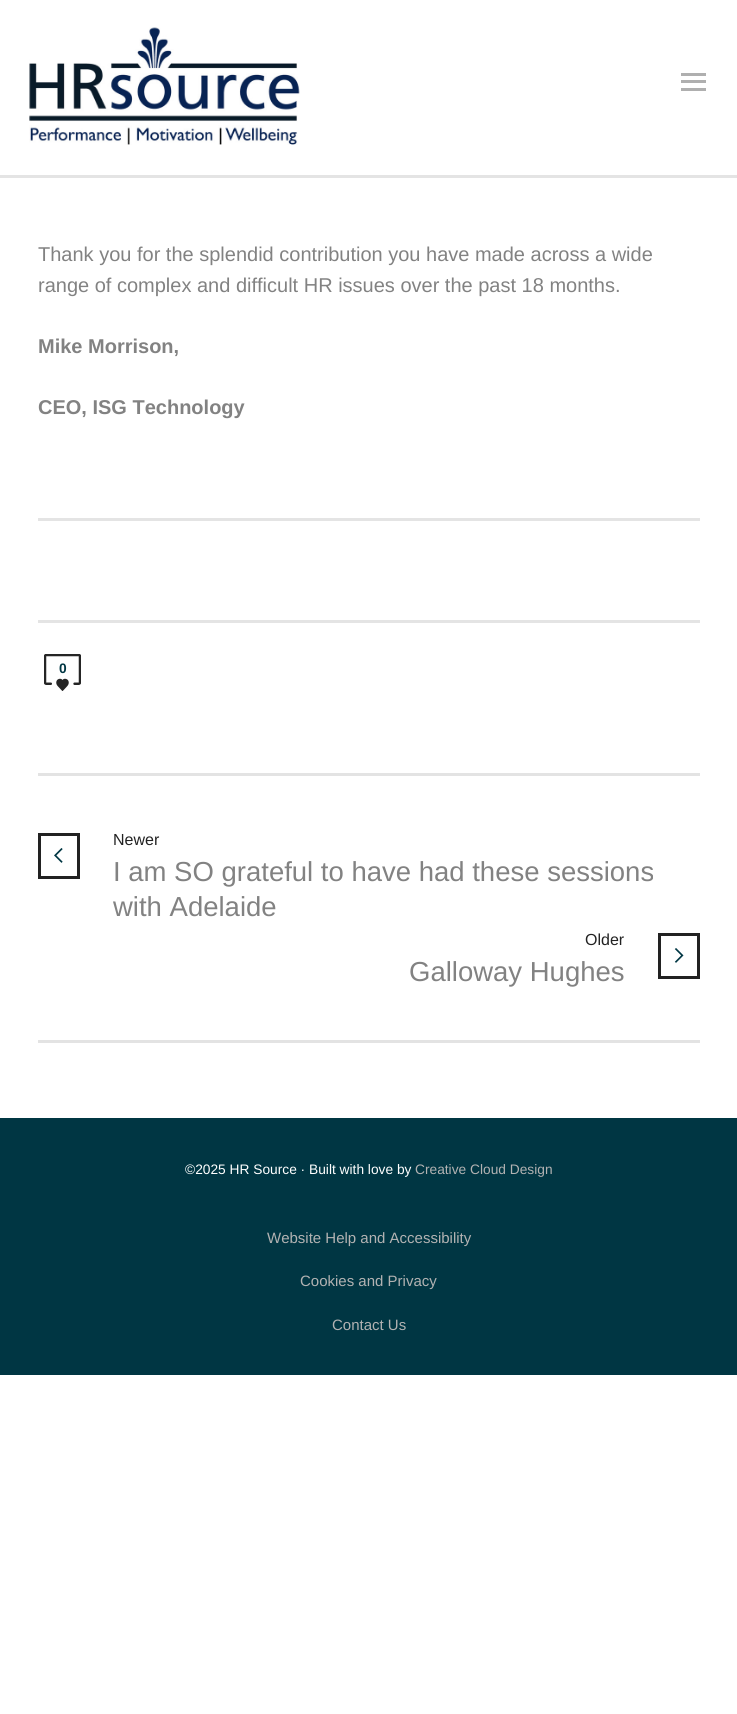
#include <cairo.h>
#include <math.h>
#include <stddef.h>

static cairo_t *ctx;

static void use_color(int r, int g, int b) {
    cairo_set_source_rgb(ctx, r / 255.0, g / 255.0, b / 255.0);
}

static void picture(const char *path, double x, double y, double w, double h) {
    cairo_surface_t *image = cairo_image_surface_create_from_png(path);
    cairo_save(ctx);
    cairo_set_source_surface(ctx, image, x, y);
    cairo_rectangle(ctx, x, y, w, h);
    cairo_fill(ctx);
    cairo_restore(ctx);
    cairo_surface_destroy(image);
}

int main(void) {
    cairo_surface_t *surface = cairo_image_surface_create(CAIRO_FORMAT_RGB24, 737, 1714);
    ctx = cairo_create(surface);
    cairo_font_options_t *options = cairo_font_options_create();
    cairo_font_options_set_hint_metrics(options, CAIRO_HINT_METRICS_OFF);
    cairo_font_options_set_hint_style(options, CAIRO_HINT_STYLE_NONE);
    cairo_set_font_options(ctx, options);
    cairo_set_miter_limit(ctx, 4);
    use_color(255, 255, 255);
    cairo_paint(ctx);
    use_color(228, 228, 228);
    cairo_rectangle(ctx, 0, 175, 737, 3);
    cairo_fill(ctx);
    picture("img1.png", 29, 27, 271, 118);
    use_color(175, 175, 175);
    cairo_rectangle(ctx, 681, 80, 25, 3);
    cairo_fill(ctx);
    cairo_rectangle(ctx, 681, 73, 25, 3);
    cairo_fill(ctx);
    cairo_rectangle(ctx, 681, 88, 25, 3);
    cairo_fill(ctx);
    cairo_select_font_face(ctx, "Liberation Sans", CAIRO_FONT_SLANT_NORMAL, CAIRO_FONT_WEIGHT_NORMAL);
    cairo_set_font_size(ctx, 20);
    use_color(130, 130, 130);
    cairo_move_to(ctx, 38, 261);
    cairo_show_text(ctx, "Thank you for the splendid contribution you have made across a wide");
    cairo_move_to(ctx, 38, 292);
    cairo_show_text(ctx, "range of complex and difficult HR issues over the past 18 months.");
    cairo_select_font_face(ctx, "Liberation Sans", CAIRO_FONT_SLANT_NORMAL, CAIRO_FONT_WEIGHT_BOLD);
    cairo_move_to(ctx, 38, 353);
    cairo_show_text(ctx, "Mike Morrison,");
    cairo_move_to(ctx, 38, 414);
    cairo_show_text(ctx, "CEO, ISG Technology");
    use_color(228, 228, 228);
    cairo_rectangle(ctx, 38, 518, 662, 3);
    cairo_fill(ctx);
    cairo_rectangle(ctx, 38, 620, 662, 3);
    cairo_fill(ctx);
    picture("img2.png", 44, 654, 37, 37);
    cairo_set_font_size(ctx, 13.75);
    use_color(0, 54, 67);
    cairo_move_to(ctx, 59, 673);
    cairo_show_text(ctx, "0");
    use_color(227, 227, 227);
    cairo_rectangle(ctx, 38, 773, 662, 3);
    cairo_fill(ctx);
    cairo_rectangle(ctx, 38, 1040, 662, 3);
    cairo_fill(ctx);
    cairo_rectangle(ctx, 39.5, 834.5, 39, 43);
    use_color(34, 34, 34);
    cairo_set_line_width(ctx, 3);
    cairo_stroke(ctx);
    picture("img3.png", 54, 848, 9, 15);
    cairo_select_font_face(ctx, "Liberation Sans", CAIRO_FONT_SLANT_NORMAL, CAIRO_FONT_WEIGHT_NORMAL);
    cairo_set_font_size(ctx, 16);
    cairo_move_to(ctx, 113, 845);
    cairo_show_text(ctx, "Newer");
    cairo_set_font_size(ctx, 27.5);
    use_color(130, 130, 130);
    cairo_move_to(ctx, 113, 881);
    cairo_show_text(ctx, "I am SO grateful to have had these sessions");
    cairo_move_to(ctx, 113, 916);
    cairo_show_text(ctx, "with Adelaide");
    cairo_set_font_size(ctx, 16);
    use_color(34, 34, 34);
    cairo_move_to(ctx, 585, 945);
    cairo_show_text(ctx, "Older");
    cairo_rectangle(ctx, 659.5, 934.5, 39, 43);
    cairo_stroke(ctx);
    picture("img4.png", 674, 948, 10, 15);
    cairo_set_font_size(ctx, 27.5);
    use_color(130, 130, 130);
    cairo_move_to(ctx, 409, 981);
    cairo_show_text(ctx, "Galloway Hughes");
    use_color(0, 54, 67);
    cairo_rectangle(ctx, 0, 1118, 737, 257);
    cairo_fill(ctx);
    cairo_set_font_size(ctx, 13.75);
    use_color(255, 255, 255);
    cairo_move_to(ctx, 185, 1174);
    cairo_show_text(ctx, "©2025 HR Source · Built with love by");
    use_color(178, 178, 178);
    cairo_move_to(ctx, 415, 1174);
    cairo_show_text(ctx, "Creative Cloud Design");
    cairo_set_font_size(ctx, 15);
    cairo_move_to(ctx, 267, 1243);
    cairo_show_text(ctx, "Website Help and Accessibility");
    cairo_move_to(ctx, 300, 1286);
    cairo_show_text(ctx, "Cookies and Privacy");
    cairo_move_to(ctx, 332, 1330);
    cairo_show_text(ctx, "Contact Us");
    cairo_surface_write_to_png(surface, "result.png");
    cairo_font_options_destroy(options);
    cairo_destroy(ctx);
    cairo_surface_destroy(surface);
    return 0;
}
